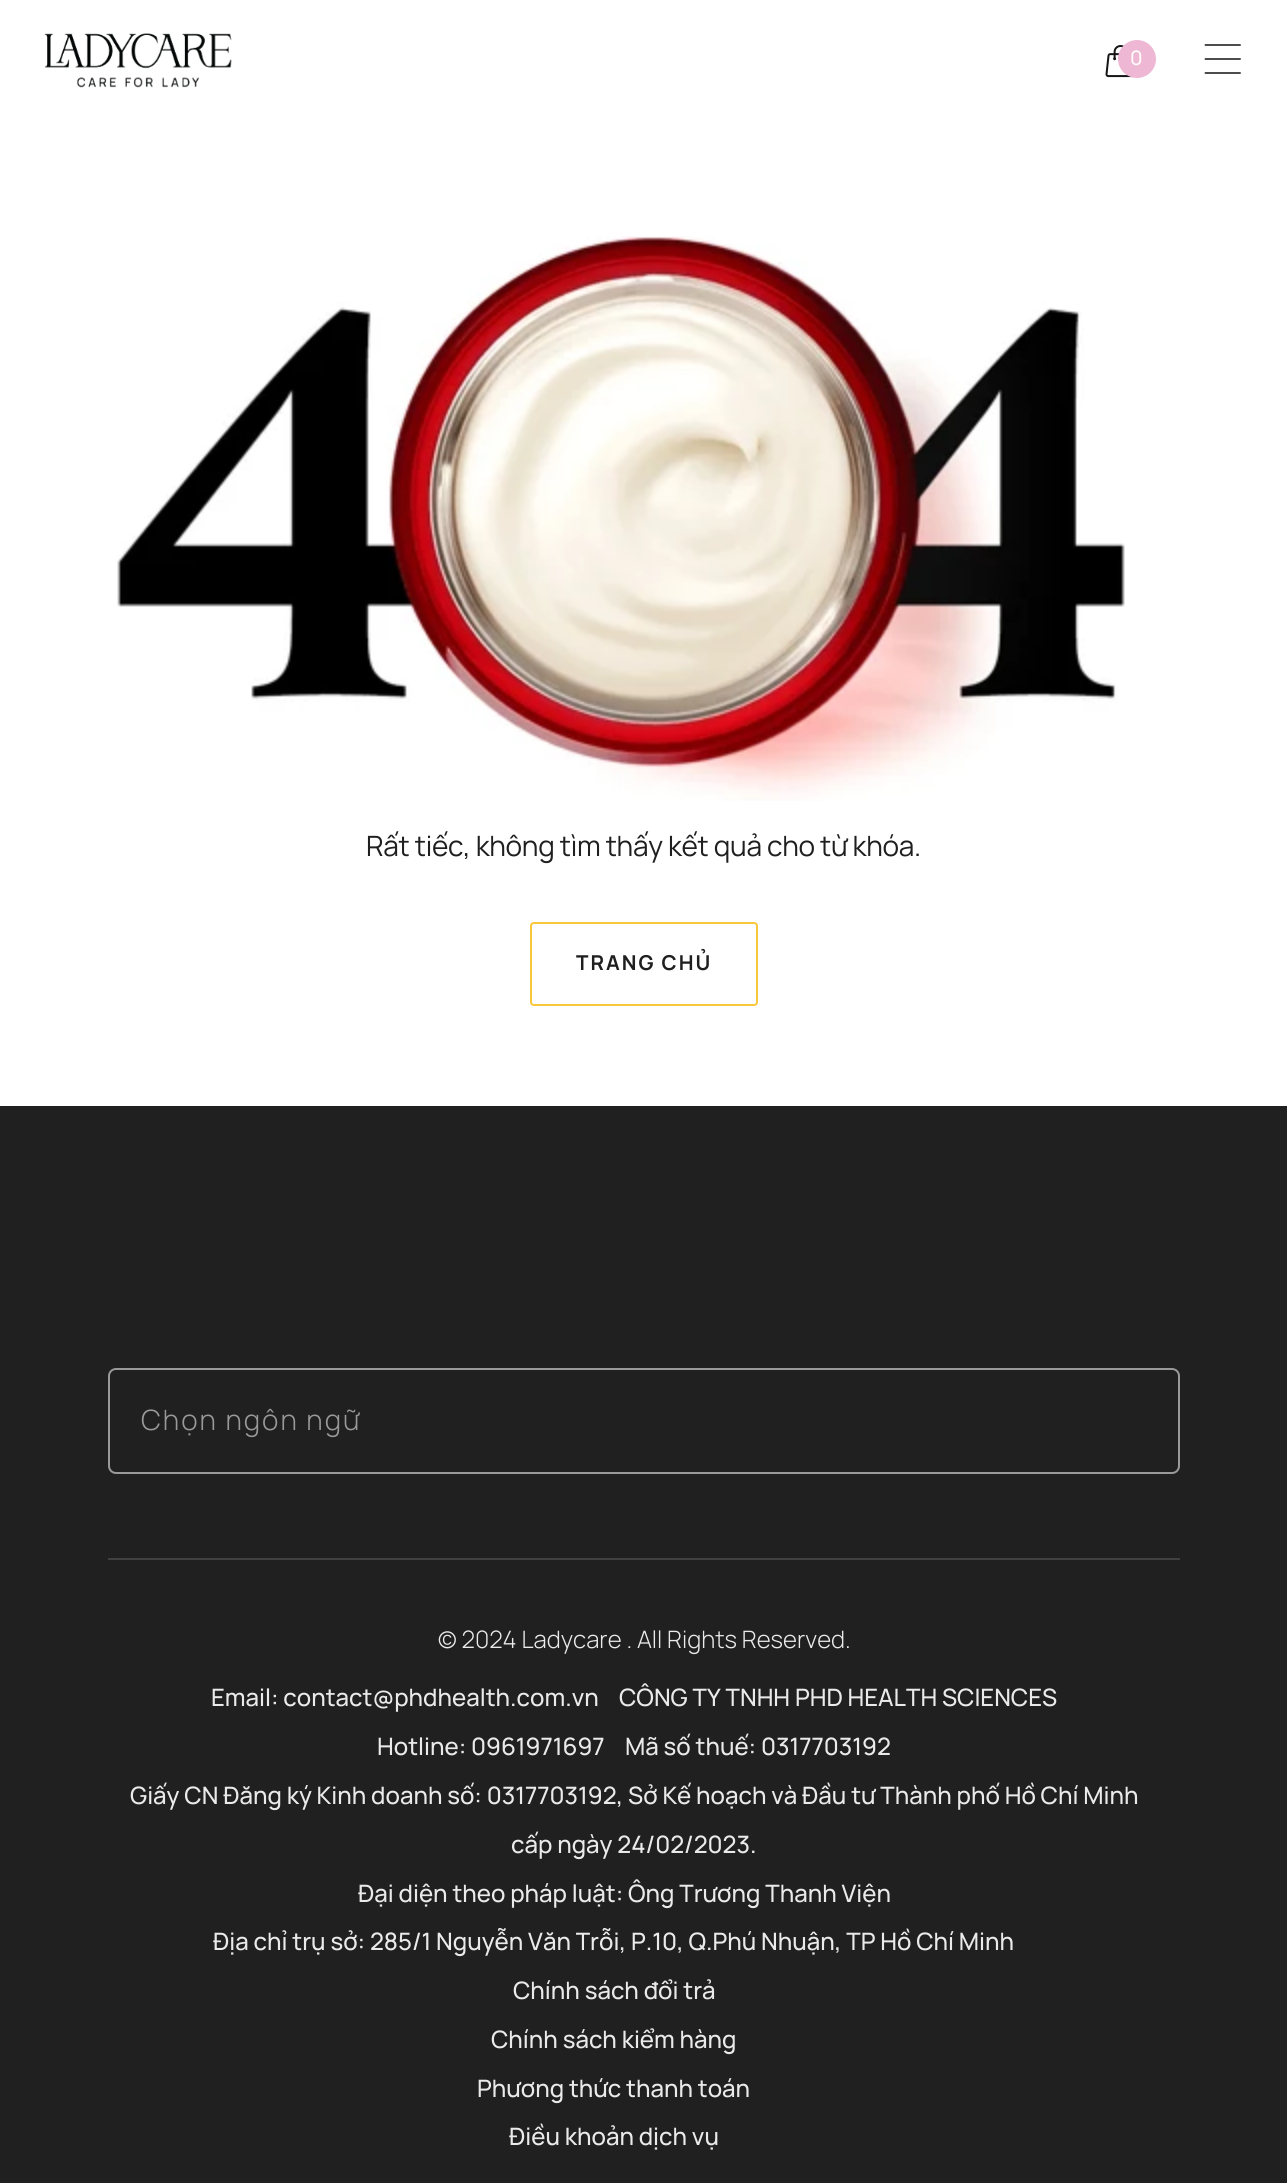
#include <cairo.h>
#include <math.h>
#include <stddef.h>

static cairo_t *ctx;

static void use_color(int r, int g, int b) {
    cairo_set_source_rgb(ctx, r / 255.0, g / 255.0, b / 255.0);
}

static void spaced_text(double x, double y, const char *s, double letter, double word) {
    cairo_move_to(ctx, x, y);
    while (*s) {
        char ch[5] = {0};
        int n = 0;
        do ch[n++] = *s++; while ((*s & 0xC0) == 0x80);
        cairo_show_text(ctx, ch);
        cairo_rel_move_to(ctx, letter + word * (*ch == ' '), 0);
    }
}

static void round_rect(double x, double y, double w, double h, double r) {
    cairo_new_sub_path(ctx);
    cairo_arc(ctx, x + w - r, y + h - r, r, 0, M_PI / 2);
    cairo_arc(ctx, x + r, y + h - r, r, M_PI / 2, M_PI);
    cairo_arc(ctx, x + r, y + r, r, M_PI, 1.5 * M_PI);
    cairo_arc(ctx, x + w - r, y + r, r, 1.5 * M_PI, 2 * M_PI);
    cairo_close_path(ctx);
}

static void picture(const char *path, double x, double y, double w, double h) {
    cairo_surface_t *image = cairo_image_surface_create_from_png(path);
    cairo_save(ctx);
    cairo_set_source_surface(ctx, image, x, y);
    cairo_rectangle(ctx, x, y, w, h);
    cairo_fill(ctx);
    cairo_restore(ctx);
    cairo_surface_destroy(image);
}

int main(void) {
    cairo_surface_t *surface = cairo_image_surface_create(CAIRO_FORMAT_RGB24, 1287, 2183);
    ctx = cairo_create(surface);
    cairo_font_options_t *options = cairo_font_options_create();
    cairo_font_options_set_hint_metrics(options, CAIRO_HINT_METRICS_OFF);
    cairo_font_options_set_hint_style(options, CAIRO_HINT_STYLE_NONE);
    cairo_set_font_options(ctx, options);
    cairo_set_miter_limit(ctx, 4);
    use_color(255, 255, 255);
    cairo_paint(ctx);
    picture("img1.png", 44, 33, 188, 55);
    picture("img2.png", 1105, 45, 28, 33);
    use_color(238, 184, 213);
    cairo_arc(ctx, 1137, 59, 19, 0, 2 * M_PI);
    cairo_fill(ctx);
    cairo_select_font_face(ctx, "Manrope Medium", CAIRO_FONT_SLANT_NORMAL, CAIRO_FONT_WEIGHT_NORMAL);
    cairo_set_font_size(ctx, 20);
    use_color(255, 252, 250);
    spaced_text(1130, 65, "0", 2, 0);
    cairo_new_path(ctx);
    cairo_move_to(ctx, 1205.5, 59);
    cairo_line_to(ctx, 1240, 59);
    cairo_move_to(ctx, 1205.5, 73);
    cairo_line_to(ctx, 1240, 73);
    cairo_move_to(ctx, 1205.5, 45);
    cairo_line_to(ctx, 1240, 45);
    use_color(64, 64, 64);
    cairo_set_line_width(ctx, 1.9);
    cairo_set_line_cap(ctx, CAIRO_LINE_CAP_ROUND);
    cairo_set_line_join(ctx, CAIRO_LINE_JOIN_ROUND);
    cairo_stroke(ctx);
    picture("img3.png", 117, 236, 1008, 565);
    cairo_select_font_face(ctx, "Manrope", CAIRO_FONT_SLANT_NORMAL, CAIRO_FONT_WEIGHT_NORMAL);
    cairo_set_font_size(ctx, 28);
    use_color(31, 31, 31);
    spaced_text(366, 856, "Rất tiếc, không tìm thấy kết quả cho từ khóa.", -0.3, 0);
    round_rect(531, 923, 226, 82, 3);
    use_color(249, 199, 60);
    cairo_set_line_width(ctx, 2);
    cairo_set_line_cap(ctx, CAIRO_LINE_CAP_BUTT);
    cairo_set_line_join(ctx, CAIRO_LINE_JOIN_MITER);
    cairo_stroke(ctx);
    cairo_select_font_face(ctx, "Manrope", CAIRO_FONT_SLANT_NORMAL, CAIRO_FONT_WEIGHT_BOLD);
    cairo_set_font_size(ctx, 20.5);
    use_color(31, 31, 31);
    spaced_text(576, 970, "TRANG CHỦ", 2, 0);
    use_color(32, 32, 32);
    cairo_rectangle(ctx, 0, 1106, 1287, 1077);
    cairo_fill(ctx);
    round_rect(109, 1369, 1070, 104, 7);
    use_color(153, 153, 153);
    cairo_stroke(ctx);
    cairo_select_font_face(ctx, "Manrope Light", CAIRO_FONT_SLANT_NORMAL, CAIRO_FONT_WEIGHT_NORMAL);
    cairo_set_font_size(ctx, 28);
    spaced_text(141, 1430, "Chọn ngôn ngữ", 2, 0);
    use_color(64, 64, 64);
    cairo_rectangle(ctx, 108, 1558, 1072, 2);
    cairo_fill(ctx);
    cairo_set_font_size(ctx, 24);
    use_color(234, 234, 234);
    cairo_move_to(ctx, 438, 1648);
    cairo_show_text(ctx, "© 2024 Ladycare . All Rights Reserved.");
    cairo_select_font_face(ctx, "Manrope Medium", CAIRO_FONT_SLANT_NORMAL, CAIRO_FONT_WEIGHT_NORMAL);
    cairo_move_to(ctx, 211, 1706);
    cairo_show_text(ctx, "Email: contact@phdhealth.com.vn");
    cairo_move_to(ctx, 619, 1706);
    cairo_show_text(ctx, "CÔNG TY TNHH PHD HEALTH SCIENCES");
    cairo_move_to(ctx, 377, 1755);
    cairo_show_text(ctx, "Hotline: 0961971697");
    cairo_move_to(ctx, 625, 1755);
    cairo_show_text(ctx, "Mã số thuế: 0317703192");
    cairo_move_to(ctx, 130, 1804);
    cairo_show_text(ctx, "Giấy CN Đăng ký Kinh doanh số: 0317703192, Sở Kế hoạch và Đầu tư Thành phố Hồ Chí Minh");
    cairo_move_to(ctx, 511, 1853);
    cairo_show_text(ctx, "cấp ngày 24/02/2023.");
    cairo_move_to(ctx, 358, 1902);
    cairo_show_text(ctx, "Đại diện theo pháp luật: Ông Trương Thanh Viện");
    cairo_move_to(ctx, 213, 1950);
    cairo_show_text(ctx, "Địa chỉ trụ sở: 285/1 Nguyễn Văn Trỗi, P.10, Q.Phú Nhuận, TP Hồ Chí Minh");
    cairo_move_to(ctx, 513, 1999);
    cairo_show_text(ctx, "Chính sách đổi trả");
    cairo_move_to(ctx, 491, 2048);
    cairo_show_text(ctx, "Chính sách kiểm hàng");
    cairo_move_to(ctx, 477, 2097);
    cairo_show_text(ctx, "Phương thức thanh toán");
    cairo_move_to(ctx, 509, 2145);
    cairo_show_text(ctx, "Điều khoản dịch vụ");
    cairo_surface_write_to_png(surface, "result.png");
    cairo_font_options_destroy(options);
    cairo_destroy(ctx);
    cairo_surface_destroy(surface);
    return 0;
}
